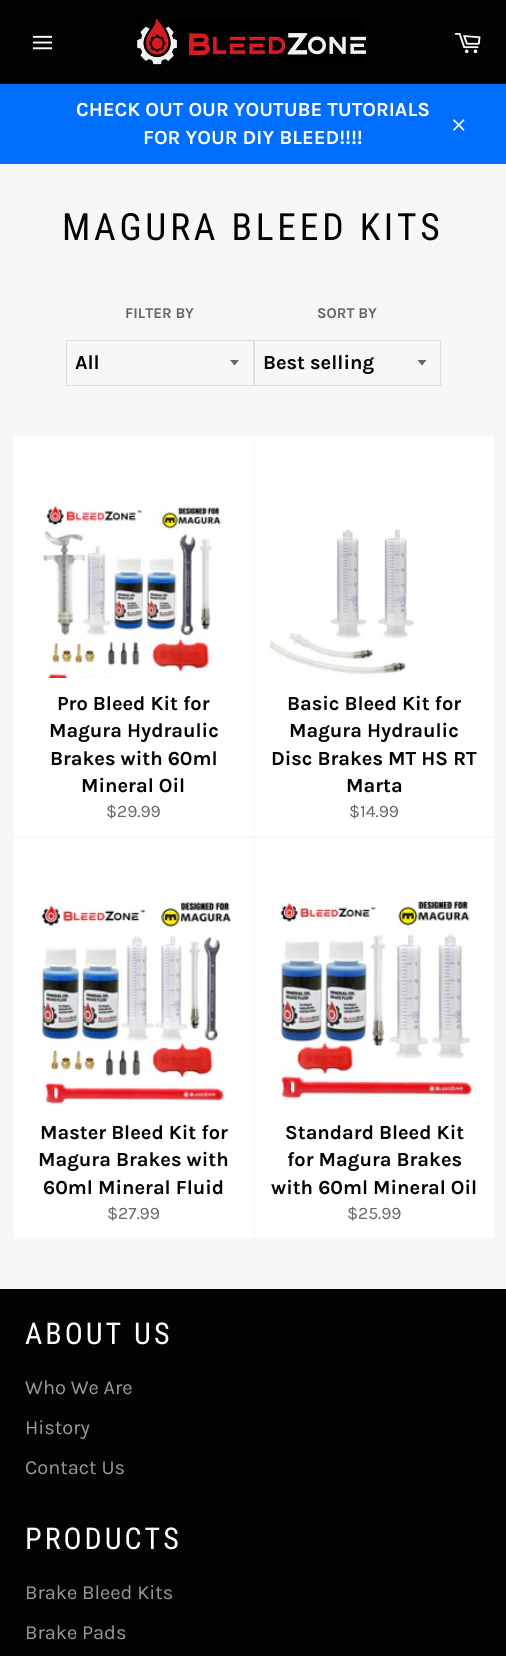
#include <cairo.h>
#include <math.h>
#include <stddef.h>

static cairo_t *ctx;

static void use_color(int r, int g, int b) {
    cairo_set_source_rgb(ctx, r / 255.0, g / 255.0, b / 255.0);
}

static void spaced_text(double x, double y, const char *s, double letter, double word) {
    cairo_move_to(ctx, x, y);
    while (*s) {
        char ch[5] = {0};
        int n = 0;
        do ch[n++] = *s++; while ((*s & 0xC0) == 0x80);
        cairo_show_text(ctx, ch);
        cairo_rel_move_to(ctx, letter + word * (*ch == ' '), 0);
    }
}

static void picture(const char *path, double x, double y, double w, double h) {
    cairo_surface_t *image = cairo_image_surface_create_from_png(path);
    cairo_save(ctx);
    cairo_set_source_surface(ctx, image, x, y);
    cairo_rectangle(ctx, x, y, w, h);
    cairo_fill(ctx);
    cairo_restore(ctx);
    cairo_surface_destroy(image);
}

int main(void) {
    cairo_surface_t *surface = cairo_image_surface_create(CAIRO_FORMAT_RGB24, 506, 1656);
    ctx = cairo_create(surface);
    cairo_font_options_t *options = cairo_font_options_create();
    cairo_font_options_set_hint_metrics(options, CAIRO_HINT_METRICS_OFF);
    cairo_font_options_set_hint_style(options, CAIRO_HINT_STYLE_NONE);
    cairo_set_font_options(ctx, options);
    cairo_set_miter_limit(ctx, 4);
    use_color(247, 247, 247);
    cairo_paint(ctx);
    use_color(3, 3, 3);
    cairo_rectangle(ctx, 0, 0, 506, 84);
    cairo_fill(ctx);
    picture("img1.png", 32, 35, 21, 15);
    picture("img2.png", 137, 18, 229, 47);
    picture("img3.png", 454, 33, 27, 21);
    use_color(0, 110, 255);
    cairo_rectangle(ctx, 0, 84, 506, 80);
    cairo_fill(ctx);
    cairo_select_font_face(ctx, "Karla", CAIRO_FONT_SLANT_NORMAL, CAIRO_FONT_WEIGHT_BOLD);
    cairo_set_font_size(ctx, 20);
    use_color(255, 255, 255);
    cairo_move_to(ctx, 76, 116);
    cairo_show_text(ctx, "CHECK OUT OUR YOUTUBE TUTORIALS");
    cairo_move_to(ctx, 143, 144);
    cairo_show_text(ctx, "FOR YOUR DIY BLEED!!!!");
    picture("img4.png", 453, 119, 12, 12);
    cairo_select_font_face(ctx, "Roboto Condensed", CAIRO_FONT_SLANT_NORMAL, CAIRO_FONT_WEIGHT_NORMAL);
    cairo_set_font_size(ctx, 37.5);
    use_color(3, 3, 3);
    spaced_text(62, 240, "MAGURA BLEED KITS", 3.75, 0);
    cairo_select_font_face(ctx, "Karla", CAIRO_FONT_SLANT_NORMAL, CAIRO_FONT_WEIGHT_BOLD);
    cairo_set_font_size(ctx, 15);
    use_color(102, 102, 102);
    cairo_move_to(ctx, 125, 318);
    cairo_show_text(ctx, "FILTER BY");
    cairo_new_path(ctx);
    cairo_move_to(ctx, 230, 360);
    cairo_line_to(ctx, 234.5, 365.5);
    cairo_line_to(ctx, 239, 360);
    cairo_close_path(ctx);
    cairo_fill(ctx);
    cairo_rectangle(ctx, 66.5, 340.5, 187, 45);
    use_color(222, 222, 222);
    cairo_set_line_width(ctx, 1);
    cairo_stroke(ctx);
    cairo_set_font_size(ctx, 20);
    use_color(3, 3, 3);
    cairo_move_to(ctx, 75, 369);
    cairo_show_text(ctx, "All");
    cairo_set_font_size(ctx, 15);
    use_color(102, 102, 102);
    cairo_move_to(ctx, 317, 318);
    cairo_show_text(ctx, "SORT BY");
    cairo_new_path(ctx);
    cairo_move_to(ctx, 417.5, 360);
    cairo_line_to(ctx, 422, 365.5);
    cairo_line_to(ctx, 426.5, 360);
    cairo_close_path(ctx);
    cairo_fill(ctx);
    cairo_rectangle(ctx, 254.5, 340.5, 186, 45);
    use_color(222, 222, 222);
    cairo_stroke(ctx);
    cairo_set_font_size(ctx, 20);
    use_color(3, 3, 3);
    cairo_move_to(ctx, 263, 369);
    cairo_show_text(ctx, "Best selling");
    use_color(255, 255, 255);
    cairo_rectangle(ctx, 14, 436, 240, 400);
    cairo_fill(ctx);
    picture("img5.png", 42, 504, 179, 174);
    use_color(3, 3, 3);
    cairo_move_to(ctx, 57, 710);
    cairo_show_text(ctx, "Pro Bleed Kit for");
    cairo_move_to(ctx, 49, 737);
    cairo_show_text(ctx, "Magura Hydraulic");
    cairo_move_to(ctx, 50, 765);
    cairo_show_text(ctx, "Brakes with 60ml");
    cairo_move_to(ctx, 81, 792);
    cairo_show_text(ctx, "Mineral Oil");
    cairo_select_font_face(ctx, "Karla", CAIRO_FONT_SLANT_NORMAL, CAIRO_FONT_WEIGHT_NORMAL);
    cairo_set_font_size(ctx, 17.5);
    use_color(102, 102, 102);
    cairo_move_to(ctx, 106, 817);
    cairo_show_text(ctx, "$29.99");
    use_color(255, 255, 255);
    cairo_rectangle(ctx, 255, 436, 239, 400);
    cairo_fill(ctx);
    picture("img6.png", 270, 528, 144, 150);
    cairo_select_font_face(ctx, "Karla", CAIRO_FONT_SLANT_NORMAL, CAIRO_FONT_WEIGHT_BOLD);
    cairo_set_font_size(ctx, 20);
    use_color(3, 3, 3);
    cairo_move_to(ctx, 287, 710);
    cairo_show_text(ctx, "Basic Bleed Kit for");
    cairo_move_to(ctx, 289, 737);
    cairo_show_text(ctx, "Magura Hydraulic");
    cairo_move_to(ctx, 271, 765);
    cairo_show_text(ctx, "Disc Brakes MT HS RT");
    cairo_move_to(ctx, 346, 792);
    cairo_show_text(ctx, "Marta");
    cairo_select_font_face(ctx, "Karla", CAIRO_FONT_SLANT_NORMAL, CAIRO_FONT_WEIGHT_NORMAL);
    cairo_set_font_size(ctx, 17.5);
    use_color(102, 102, 102);
    cairo_move_to(ctx, 349, 817);
    cairo_show_text(ctx, "$14.99");
    use_color(255, 255, 255);
    cairo_rectangle(ctx, 14, 838, 240, 400);
    cairo_fill(ctx);
    picture("img7.png", 39, 902, 194, 204);
    cairo_select_font_face(ctx, "Karla", CAIRO_FONT_SLANT_NORMAL, CAIRO_FONT_WEIGHT_BOLD);
    cairo_set_font_size(ctx, 20);
    use_color(3, 3, 3);
    cairo_move_to(ctx, 40, 1139);
    cairo_show_text(ctx, "Master Bleed Kit for");
    cairo_move_to(ctx, 38, 1166);
    cairo_show_text(ctx, "Magura Brakes with");
    cairo_move_to(ctx, 43, 1194);
    cairo_show_text(ctx, "60ml Mineral Fluid");
    cairo_select_font_face(ctx, "Karla", CAIRO_FONT_SLANT_NORMAL, CAIRO_FONT_WEIGHT_NORMAL);
    cairo_set_font_size(ctx, 17.5);
    use_color(102, 102, 102);
    cairo_move_to(ctx, 107, 1219);
    cairo_show_text(ctx, "$27.99");
    use_color(255, 255, 255);
    cairo_rectangle(ctx, 255, 838, 239, 400);
    cairo_fill(ctx);
    picture("img8.png", 279, 900, 195, 206);
    cairo_select_font_face(ctx, "Karla", CAIRO_FONT_SLANT_NORMAL, CAIRO_FONT_WEIGHT_BOLD);
    cairo_set_font_size(ctx, 20);
    use_color(3, 3, 3);
    cairo_move_to(ctx, 285, 1139);
    cairo_show_text(ctx, "Standard Bleed Kit");
    cairo_move_to(ctx, 287, 1166);
    cairo_show_text(ctx, "for Magura Brakes");
    cairo_move_to(ctx, 271, 1194);
    cairo_show_text(ctx, "with 60ml Mineral Oil");
    cairo_select_font_face(ctx, "Karla", CAIRO_FONT_SLANT_NORMAL, CAIRO_FONT_WEIGHT_NORMAL);
    cairo_set_font_size(ctx, 17.5);
    use_color(102, 102, 102);
    cairo_move_to(ctx, 347, 1219);
    cairo_show_text(ctx, "$25.99");
    use_color(3, 3, 3);
    cairo_rectangle(ctx, 0, 1289, 506, 367);
    cairo_fill(ctx);
    cairo_select_font_face(ctx, "Roboto Condensed", CAIRO_FONT_SLANT_NORMAL, CAIRO_FONT_WEIGHT_NORMAL);
    cairo_set_font_size(ctx, 30);
    use_color(255, 255, 255);
    spaced_text(25, 1344, "ABOUT US", 3, 0);
    cairo_select_font_face(ctx, "Karla", CAIRO_FONT_SLANT_NORMAL, CAIRO_FONT_WEIGHT_NORMAL);
    cairo_set_font_size(ctx, 20);
    use_color(154, 154, 154);
    cairo_move_to(ctx, 25, 1394);
    cairo_show_text(ctx, "Who We Are");
    cairo_move_to(ctx, 25, 1434);
    cairo_show_text(ctx, "History");
    cairo_move_to(ctx, 25, 1474);
    cairo_show_text(ctx, "Contact Us");
    cairo_select_font_face(ctx, "Roboto Condensed", CAIRO_FONT_SLANT_NORMAL, CAIRO_FONT_WEIGHT_NORMAL);
    cairo_set_font_size(ctx, 30);
    use_color(255, 255, 255);
    spaced_text(25, 1549, "PRODUCTS", 3, 0);
    cairo_select_font_face(ctx, "Karla", CAIRO_FONT_SLANT_NORMAL, CAIRO_FONT_WEIGHT_NORMAL);
    cairo_set_font_size(ctx, 20);
    use_color(154, 154, 154);
    cairo_move_to(ctx, 25, 1599);
    cairo_show_text(ctx, "Brake Bleed Kits");
    cairo_move_to(ctx, 25, 1639);
    cairo_show_text(ctx, "Brake Pads");
    cairo_surface_write_to_png(surface, "result.png");
    cairo_font_options_destroy(options);
    cairo_destroy(ctx);
    cairo_surface_destroy(surface);
    return 0;
}
